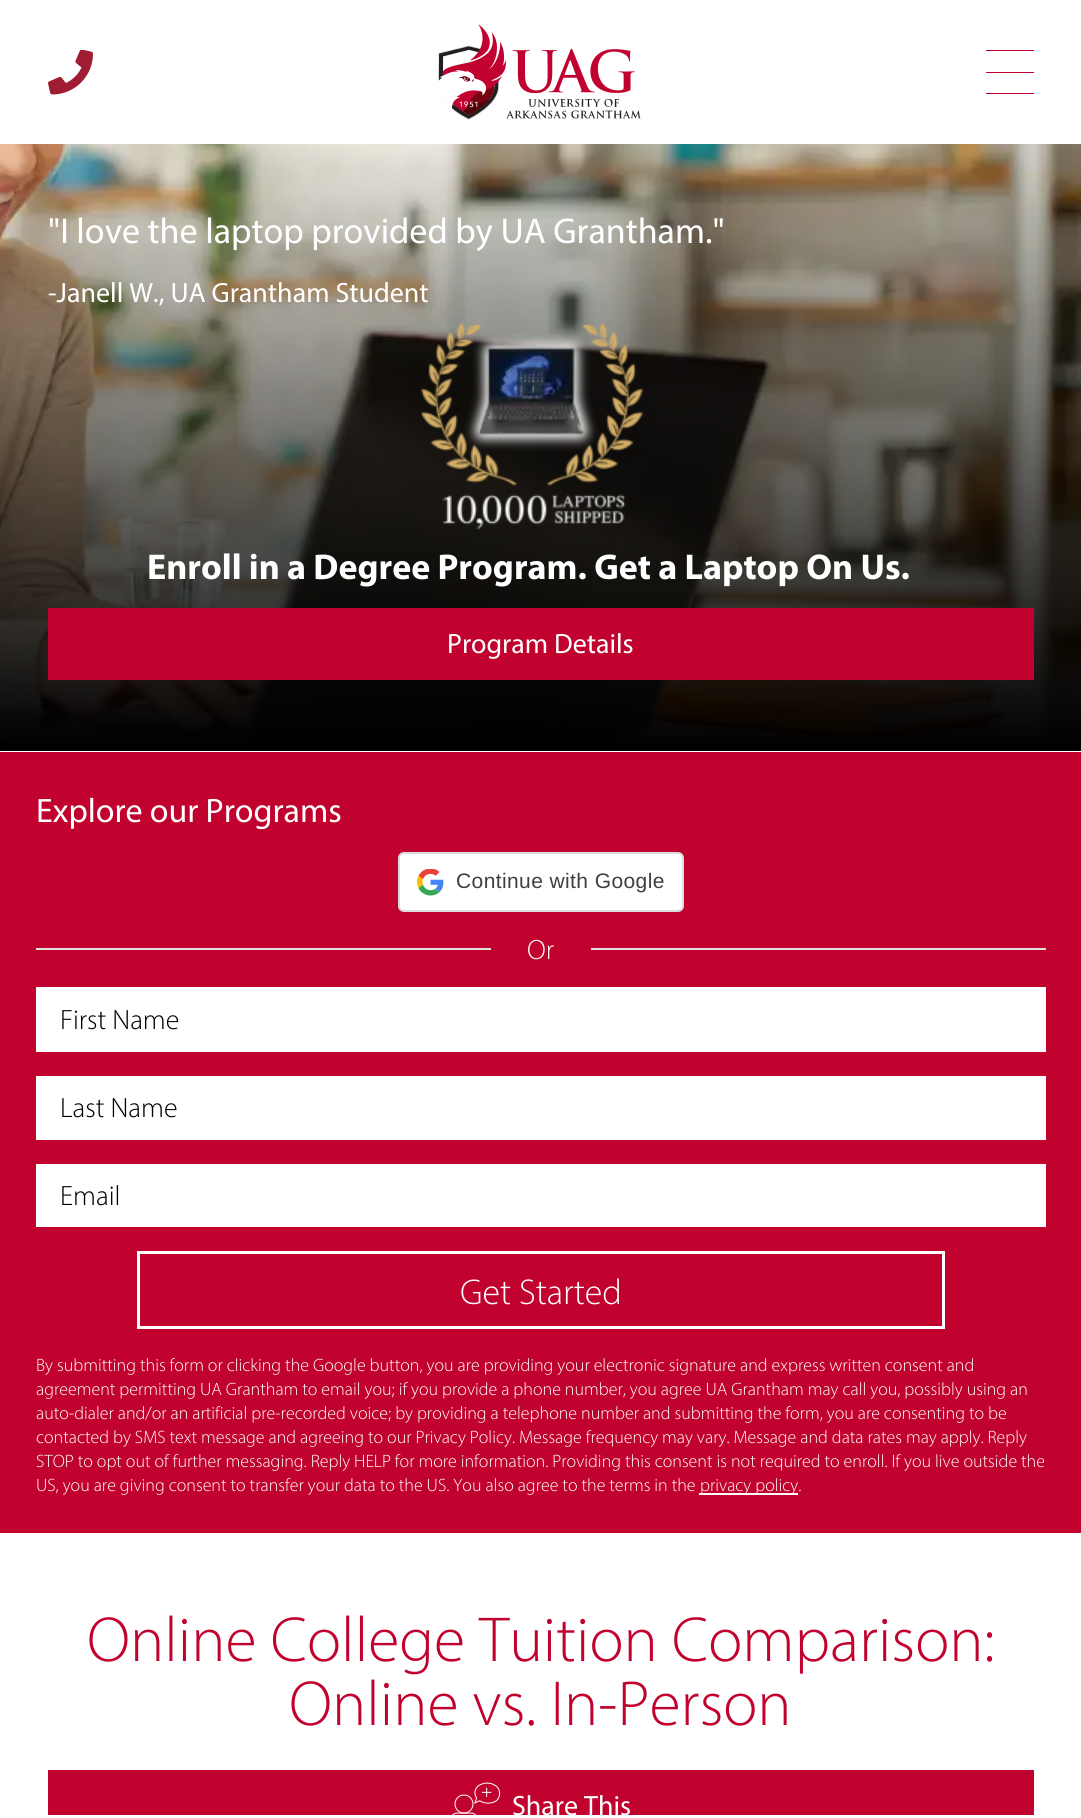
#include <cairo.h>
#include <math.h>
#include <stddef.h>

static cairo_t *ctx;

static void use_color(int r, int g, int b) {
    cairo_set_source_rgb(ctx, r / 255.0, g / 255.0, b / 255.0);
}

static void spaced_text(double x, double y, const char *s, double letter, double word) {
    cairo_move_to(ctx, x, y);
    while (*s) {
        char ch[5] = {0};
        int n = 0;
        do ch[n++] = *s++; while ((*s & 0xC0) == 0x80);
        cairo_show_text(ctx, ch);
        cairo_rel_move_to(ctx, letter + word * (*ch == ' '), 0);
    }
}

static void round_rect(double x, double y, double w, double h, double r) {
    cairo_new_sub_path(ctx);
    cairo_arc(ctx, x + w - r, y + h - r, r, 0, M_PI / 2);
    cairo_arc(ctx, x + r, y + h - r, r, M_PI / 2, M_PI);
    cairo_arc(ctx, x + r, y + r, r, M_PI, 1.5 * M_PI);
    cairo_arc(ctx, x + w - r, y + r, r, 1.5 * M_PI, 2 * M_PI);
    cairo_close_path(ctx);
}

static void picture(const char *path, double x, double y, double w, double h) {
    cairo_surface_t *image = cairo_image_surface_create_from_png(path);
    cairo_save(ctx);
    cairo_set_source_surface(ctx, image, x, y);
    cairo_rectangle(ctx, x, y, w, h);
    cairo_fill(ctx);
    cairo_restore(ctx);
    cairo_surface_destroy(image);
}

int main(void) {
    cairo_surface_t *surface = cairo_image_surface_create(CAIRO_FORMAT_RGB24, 1081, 1818);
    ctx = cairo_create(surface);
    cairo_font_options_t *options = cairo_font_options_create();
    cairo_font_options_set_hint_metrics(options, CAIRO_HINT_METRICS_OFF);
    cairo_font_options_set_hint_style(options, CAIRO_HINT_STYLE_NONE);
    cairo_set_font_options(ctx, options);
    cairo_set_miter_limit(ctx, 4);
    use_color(255, 255, 255);
    cairo_paint(ctx);
    picture("img1.png", 48, 50, 45, 45);
    picture("img2.png", 438, 24, 203, 96);
    use_color(193, 2, 48);
    cairo_rectangle(ctx, 986, 50, 48, 1);
    cairo_fill(ctx);
    cairo_rectangle(ctx, 986, 72, 48, 1);
    cairo_fill(ctx);
    cairo_rectangle(ctx, 986, 93, 48, 1);
    cairo_fill(ctx);
    picture("img3.png", 0, 144, 1081, 607);
    cairo_select_font_face(ctx, "Myriad", CAIRO_FONT_SLANT_NORMAL, CAIRO_FONT_WEIGHT_NORMAL);
    cairo_set_font_size(ctx, 36);
    use_color(255, 255, 255);
    cairo_move_to(ctx, 48, 243);
    cairo_show_text(ctx, "\"I love the laptop provided by UA Grantham.\"");
    cairo_set_font_size(ctx, 28);
    cairo_move_to(ctx, 48, 302);
    cairo_show_text(ctx, "-Janell W., UA Grantham Student");
    picture("img4.png", 420, 322, 224, 208);
    cairo_select_font_face(ctx, "Myriad", CAIRO_FONT_SLANT_NORMAL, CAIRO_FONT_WEIGHT_BOLD);
    cairo_set_font_size(ctx, 36);
    cairo_move_to(ctx, 147, 579);
    cairo_show_text(ctx, "Enroll in a Degree Program. Get a Laptop On Us.");
    use_color(193, 2, 47);
    cairo_rectangle(ctx, 48, 608, 986, 72);
    cairo_fill(ctx);
    cairo_select_font_face(ctx, "Myriad", CAIRO_FONT_SLANT_NORMAL, CAIRO_FONT_WEIGHT_NORMAL);
    cairo_set_font_size(ctx, 28);
    use_color(255, 255, 255);
    cairo_move_to(ctx, 447, 653);
    cairo_show_text(ctx, "Program Details");
    use_color(193, 2, 47);
    cairo_rectangle(ctx, 0, 752, 1081, 781);
    cairo_fill(ctx);
    cairo_set_font_size(ctx, 34);
    use_color(255, 255, 255);
    cairo_move_to(ctx, 36, 822);
    cairo_show_text(ctx, "Explore our Programs");
    round_rect(399, 853, 284, 58, 5);
    cairo_fill_preserve(ctx);
    use_color(218, 220, 224);
    cairo_stroke(ctx);
    picture("img5.png", 417, 869, 27, 27);
    cairo_select_font_face(ctx, "Liberation Sans", CAIRO_FONT_SLANT_NORMAL, CAIRO_FONT_WEIGHT_NORMAL);
    cairo_set_font_size(ctx, 21);
    use_color(60, 64, 67);
    spaced_text(456, 888, "Continue with Google", 0.4, 0);
    use_color(223, 224, 226);
    cairo_rectangle(ctx, 36, 948, 455, 2);
    cairo_fill(ctx);
    cairo_select_font_face(ctx, "Myriad Light", CAIRO_FONT_SLANT_NORMAL, CAIRO_FONT_WEIGHT_NORMAL);
    cairo_set_font_size(ctx, 28);
    use_color(255, 255, 255);
    cairo_move_to(ctx, 527, 959);
    cairo_show_text(ctx, "Or");
    use_color(223, 224, 226);
    cairo_rectangle(ctx, 591, 948, 455, 2);
    cairo_fill(ctx);
    use_color(255, 255, 255);
    cairo_rectangle(ctx, 36, 987, 1010, 65);
    cairo_fill(ctx);
    use_color(0, 0, 0);
    cairo_move_to(ctx, 60, 1029);
    cairo_show_text(ctx, "First Name");
    use_color(255, 255, 255);
    cairo_rectangle(ctx, 36, 1076, 1010, 64);
    cairo_fill(ctx);
    use_color(0, 0, 0);
    cairo_move_to(ctx, 60, 1117);
    cairo_show_text(ctx, "Last Name");
    use_color(255, 255, 255);
    cairo_rectangle(ctx, 36, 1164, 1010, 63);
    cairo_fill(ctx);
    use_color(0, 0, 0);
    cairo_move_to(ctx, 60, 1205);
    cairo_show_text(ctx, "Email");
    cairo_rectangle(ctx, 138.5, 1252.5, 805, 75);
    use_color(255, 255, 255);
    cairo_set_line_width(ctx, 3);
    cairo_stroke(ctx);
    cairo_set_font_size(ctx, 36);
    cairo_move_to(ctx, 460, 1304);
    cairo_show_text(ctx, "Get Started");
    cairo_set_font_size(ctx, 18);
    cairo_move_to(ctx, 36, 1371);
    cairo_show_text(ctx, "By submitting this form or clicking the Google button, you are providing your electronic signature and express written consent and");
    cairo_move_to(ctx, 36, 1395);
    cairo_show_text(ctx, "agreement permitting UA Grantham to email you; if you provide a phone number, you agree UA Grantham may call you, possibly using an");
    cairo_move_to(ctx, 36, 1419);
    cairo_show_text(ctx, "auto-dialer and/or an artificial pre-recorded voice; by providing a telephone number and submitting the form, you are consenting to be");
    cairo_move_to(ctx, 36, 1443);
    cairo_show_text(ctx, "contacted by SMS text message and agreeing to our Privacy Policy. Message frequency may vary. Message and data rates may apply. Reply");
    cairo_move_to(ctx, 36, 1467);
    cairo_show_text(ctx, "STOP to opt out of further messaging. Reply HELP for more information. Providing this consent is not required to enroll. If you live outside the");
    cairo_move_to(ctx, 36, 1491);
    cairo_show_text(ctx, "US, you are giving consent to transfer your data to the US. You also agree to the terms in the");
    cairo_rectangle(ctx, 699, 1493, 99, 2);
    cairo_fill(ctx);
    cairo_move_to(ctx, 700, 1491);
    cairo_show_text(ctx, "privacy policy.");
    cairo_set_font_size(ctx, 64);
    use_color(193, 2, 47);
    cairo_move_to(ctx, 87, 1661);
    cairo_show_text(ctx, "Online College Tuition Comparison:");
    cairo_move_to(ctx, 289, 1725);
    cairo_show_text(ctx, "Online vs. In-Person");
    cairo_rectangle(ctx, 48, 1770, 986, 45);
    cairo_fill(ctx);
    picture("img6.png", 452, 1782, 49, 33);
    cairo_select_font_face(ctx, "Liberation Serif", CAIRO_FONT_SLANT_NORMAL, CAIRO_FONT_WEIGHT_NORMAL);
    cairo_set_font_size(ctx, 20);
    use_color(255, 255, 255);
    cairo_move_to(ctx, 481, 1799);
    cairo_show_text(ctx, "+");
    cairo_select_font_face(ctx, "Myriad", CAIRO_FONT_SLANT_NORMAL, CAIRO_FONT_WEIGHT_NORMAL);
    cairo_set_font_size(ctx, 28);
    cairo_move_to(ctx, 512, 1815);
    cairo_show_text(ctx, "Share This");
    cairo_surface_write_to_png(surface, "result.png");
    cairo_font_options_destroy(options);
    cairo_destroy(ctx);
    cairo_surface_destroy(surface);
    return 0;
}
